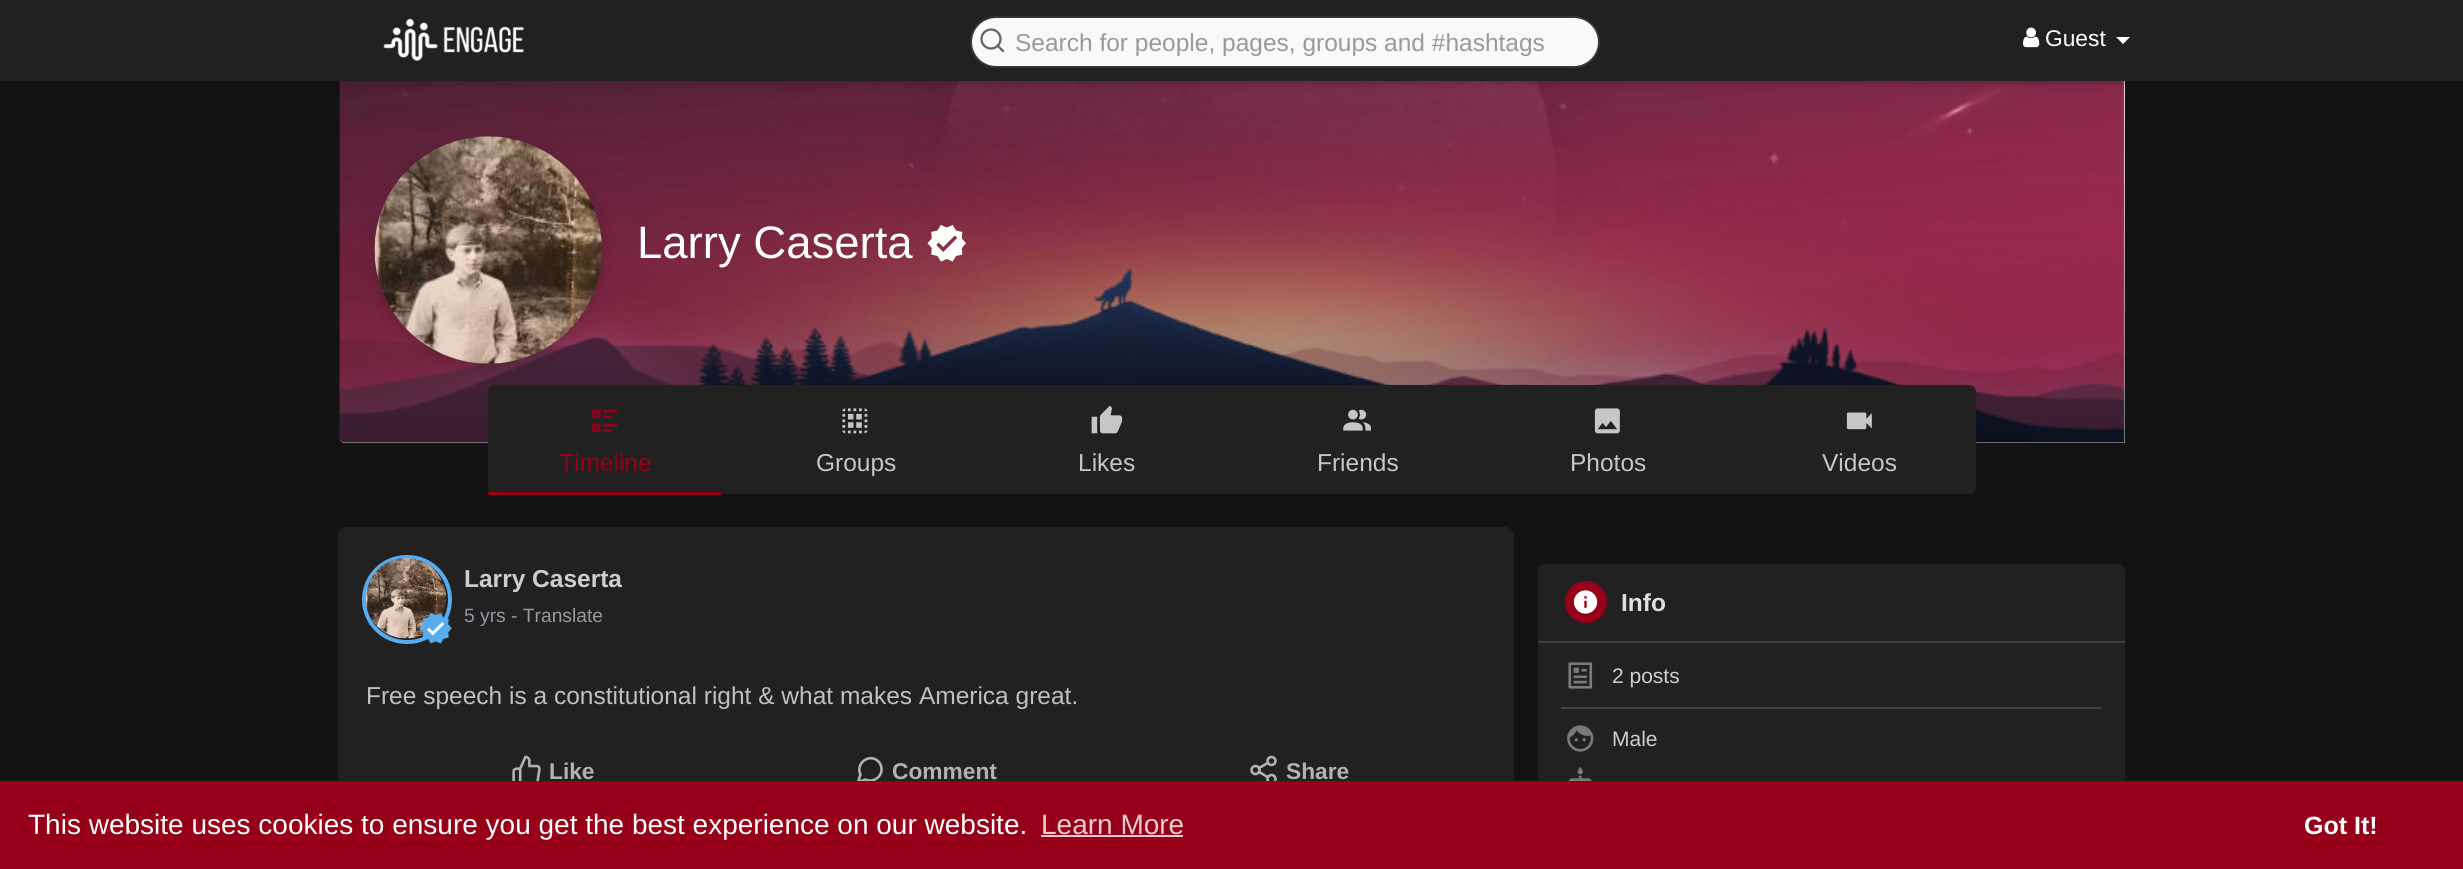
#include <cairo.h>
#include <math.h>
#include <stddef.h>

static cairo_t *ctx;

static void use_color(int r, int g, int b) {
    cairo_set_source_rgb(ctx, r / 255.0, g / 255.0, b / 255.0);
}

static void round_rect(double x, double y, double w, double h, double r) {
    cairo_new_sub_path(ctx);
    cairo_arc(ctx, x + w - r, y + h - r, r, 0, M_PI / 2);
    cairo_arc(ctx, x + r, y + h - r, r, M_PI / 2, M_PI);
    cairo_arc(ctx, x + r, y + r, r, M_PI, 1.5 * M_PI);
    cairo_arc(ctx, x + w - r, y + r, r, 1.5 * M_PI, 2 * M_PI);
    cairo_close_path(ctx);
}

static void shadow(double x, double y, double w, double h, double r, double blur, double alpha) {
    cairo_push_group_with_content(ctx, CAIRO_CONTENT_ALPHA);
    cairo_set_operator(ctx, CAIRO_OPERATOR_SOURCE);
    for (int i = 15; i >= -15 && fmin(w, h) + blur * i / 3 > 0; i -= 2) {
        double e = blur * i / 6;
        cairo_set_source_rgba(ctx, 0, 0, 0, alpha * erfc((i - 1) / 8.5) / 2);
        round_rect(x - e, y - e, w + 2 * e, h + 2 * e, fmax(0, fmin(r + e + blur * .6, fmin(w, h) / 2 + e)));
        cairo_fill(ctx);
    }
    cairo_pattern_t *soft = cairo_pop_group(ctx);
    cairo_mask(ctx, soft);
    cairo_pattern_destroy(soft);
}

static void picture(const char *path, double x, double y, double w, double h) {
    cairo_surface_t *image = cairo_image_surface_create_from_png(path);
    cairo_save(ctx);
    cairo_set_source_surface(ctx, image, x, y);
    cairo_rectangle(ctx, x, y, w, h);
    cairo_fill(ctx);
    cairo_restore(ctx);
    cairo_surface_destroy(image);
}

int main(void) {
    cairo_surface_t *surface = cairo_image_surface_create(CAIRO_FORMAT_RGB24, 2463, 869);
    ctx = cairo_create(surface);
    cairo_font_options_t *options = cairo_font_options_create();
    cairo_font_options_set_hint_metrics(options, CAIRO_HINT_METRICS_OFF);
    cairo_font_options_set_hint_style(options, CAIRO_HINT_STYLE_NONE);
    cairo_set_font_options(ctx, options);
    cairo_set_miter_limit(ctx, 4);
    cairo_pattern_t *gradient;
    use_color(19, 19, 19);
    cairo_paint(ctx);
    use_color(255, 255, 255);
    cairo_new_path(ctx);
    cairo_move_to(ctx, 340, -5);
    cairo_line_to(ctx, 2125, -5);
    cairo_line_to(ctx, 2125, 443);
    cairo_line_to(ctx, 345, 443);
    cairo_curve_to(ctx, 342, 443, 340, 441, 340, 438);
    cairo_close_path(ctx);
    cairo_fill(ctx);
    picture("img3.png", 339, 81, 1786, 362);
    gradient = cairo_pattern_create_linear(1232, 93, 1232, 443);
    cairo_pattern_add_color_stop_rgba(gradient, 0, 0, 0, 0, 0);
    cairo_pattern_add_color_stop_rgba(gradient, 1, 0, 0, 0, 0.45);
    cairo_set_source(ctx, gradient);
    cairo_pattern_destroy(gradient);
    cairo_new_path(ctx);
    cairo_move_to(ctx, 340, 93);
    cairo_line_to(ctx, 2125, 93);
    cairo_line_to(ctx, 2125, 443);
    cairo_line_to(ctx, 345, 443);
    cairo_curve_to(ctx, 342, 443, 340, 441, 340, 438);
    cairo_close_path(ctx);
    cairo_fill(ctx);
    use_color(0, 0, 0);
    shadow(0, 4, 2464, 80, 0, 3.5, 0.15);
    use_color(33, 33, 33);
    cairo_rectangle(ctx, 0, 0, 2463, 81);
    cairo_fill(ctx);
    picture("img1.png", 383, 18, 141, 43);
    use_color(249, 249, 249);
    round_rect(971, 17, 628, 50, 25);
    cairo_fill_preserve(ctx);
    use_color(54, 54, 54);
    cairo_stroke(ctx);
    cairo_arc(ctx, 991, 39, 9.5, 0, 2 * M_PI);
    use_color(102, 102, 102);
    cairo_set_line_width(ctx, 2.3);
    cairo_stroke(ctx);
    cairo_new_path(ctx);
    cairo_move_to(ctx, 1003, 51);
    cairo_line_to(ctx, 997.5, 45.5);
    cairo_set_line_cap(ctx, CAIRO_LINE_CAP_ROUND);
    cairo_set_line_join(ctx, CAIRO_LINE_JOIN_ROUND);
    cairo_stroke(ctx);
    cairo_save(ctx);
    cairo_rectangle(ctx, 1015, 28, 562, 28);
    cairo_clip(ctx);
    cairo_select_font_face(ctx, "Liberation Sans", CAIRO_FONT_SLANT_NORMAL, CAIRO_FONT_WEIGHT_NORMAL);
    cairo_set_font_size(ctx, 24.5);
    use_color(153, 153, 153);
    cairo_move_to(ctx, 1015, 51);
    cairo_show_text(ctx, "Search for people, pages, groups and #hashtags");
    cairo_restore(ctx);
    picture("img2.png", 2023, 27, 17, 21);
    cairo_select_font_face(ctx, "Liberation Sans", CAIRO_FONT_SLANT_NORMAL, CAIRO_FONT_WEIGHT_NORMAL);
    cairo_set_font_size(ctx, 22.75);
    use_color(255, 255, 255);
    cairo_move_to(ctx, 2045, 46);
    cairo_show_text(ctx, "Guest");
    cairo_new_path(ctx);
    cairo_move_to(ctx, 2116, 37);
    cairo_line_to(ctx, 2130, 37);
    cairo_line_to(ctx, 2123, 44);
    cairo_close_path(ctx);
    cairo_fill(ctx);
    use_color(0, 0, 0);
    shadow(488, 387, 1488, 108, 7, 2.5, 0.1);
    use_color(33, 33, 33);
    round_rect(488, 385, 1488, 109, 7);
    cairo_fill(ctx);
    use_color(0, 0, 0);
    shadow(375, 140, 227, 228, 113.5, 9, 0.15);
    picture("img4.png", 374, 136, 228, 228);
    cairo_set_font_size(ctx, 45.5);
    use_color(255, 255, 255);
    cairo_move_to(ctx, 637, 258);
    cairo_show_text(ctx, "Larry Caserta");
    picture("img5.png", 927, 225, 39, 37);
    use_color(150, 0, 24);
    cairo_rectangle(ctx, 488, 492, 233, 3);
    cairo_fill(ctx);
    picture("img6.png", 592, 409, 26, 23);
    cairo_set_font_size(ctx, 24.5);
    cairo_move_to(ctx, 559, 471);
    cairo_show_text(ctx, "Timeline");
    picture("img7.png", 842, 408, 26, 26);
    use_color(198, 198, 198);
    cairo_move_to(ctx, 816, 471);
    cairo_show_text(ctx, "Groups");
    picture("img8.png", 1091, 405, 32, 29);
    cairo_move_to(ctx, 1078, 471);
    cairo_show_text(ctx, "Likes");
    picture("img9.png", 1343, 409, 28, 22);
    cairo_move_to(ctx, 1317, 471);
    cairo_show_text(ctx, "Friends");
    picture("img10.png", 1594, 408, 26, 26);
    cairo_move_to(ctx, 1570, 471);
    cairo_show_text(ctx, "Photos");
    picture("img11.png", 1846, 412, 26, 18);
    cairo_move_to(ctx, 1822, 471);
    cairo_show_text(ctx, "Videos");
    round_rect(339, 528, 1174, 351, 8);
    use_color(33, 33, 33);
    cairo_set_line_width(ctx, 2);
    cairo_set_line_cap(ctx, CAIRO_LINE_CAP_BUTT);
    cairo_set_line_join(ctx, CAIRO_LINE_JOIN_MITER);
    cairo_stroke(ctx);
    round_rect(340, 529, 1172, 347, 7);
    cairo_fill(ctx);
    round_rect(364, 557, 86, 85, 42.5);
    use_color(85, 172, 238);
    cairo_set_line_width(ctx, 4);
    cairo_stroke(ctx);
    picture("img12.png", 365, 558, 81, 81);
    use_color(255, 255, 255);
    cairo_arc(ctx, 435.5, 628.5, 10.5, 0, 2 * M_PI);
    cairo_fill(ctx);
    picture("img13.png", 419, 613, 33, 31);
    cairo_select_font_face(ctx, "Liberation Sans", CAIRO_FONT_SLANT_NORMAL, CAIRO_FONT_WEIGHT_BOLD);
    use_color(206, 206, 206);
    cairo_move_to(ctx, 464, 587);
    cairo_show_text(ctx, "Larry Caserta");
    cairo_select_font_face(ctx, "Liberation Sans", CAIRO_FONT_SLANT_NORMAL, CAIRO_FONT_WEIGHT_NORMAL);
    cairo_set_font_size(ctx, 19.25);
    use_color(145, 151, 163);
    cairo_move_to(ctx, 464, 622);
    cairo_show_text(ctx, "5 yrs");
    use_color(153, 153, 153);
    cairo_move_to(ctx, 511, 622);
    cairo_show_text(ctx, "- Translate");
    cairo_set_font_size(ctx, 24.5);
    use_color(192, 192, 192);
    cairo_move_to(ctx, 366, 704);
    cairo_show_text(ctx, "Free speech is a constitutional right & what makes America great.");
    picture("img14.png", 512, 755, 29, 26);
    cairo_select_font_face(ctx, "Liberation Sans", CAIRO_FONT_SLANT_NORMAL, CAIRO_FONT_WEIGHT_BOLD);
    cairo_set_font_size(ctx, 22.75);
    use_color(178, 178, 178);
    cairo_move_to(ctx, 549, 779);
    cairo_show_text(ctx, "Like");
    cairo_new_path(ctx);
    cairo_move_to(ctx, 881.5, 769.5);
    cairo_curve_to(ctx, 881.5, 777.5, 872.5, 783, 865.5, 779.5);
    cairo_line_to(ctx, 858, 782);
    cairo_line_to(ctx, 860.5, 774.5);
    cairo_curve_to(ctx, 855, 763.5, 869.5, 752.5, 878.5, 761.5);
    cairo_curve_to(ctx, 880.5, 763.5, 881.5, 766.5, 881.5, 769.5);
    cairo_close_path(ctx);
    cairo_set_line_width(ctx, 2.6);
    cairo_set_line_cap(ctx, CAIRO_LINE_CAP_ROUND);
    cairo_set_line_join(ctx, CAIRO_LINE_JOIN_ROUND);
    cairo_stroke(ctx);
    cairo_move_to(ctx, 892, 779);
    cairo_show_text(ctx, "Comment");
    picture("img15.png", 1250, 755, 27, 26);
    cairo_move_to(ctx, 1286, 779);
    cairo_show_text(ctx, "Share");
    use_color(33, 33, 33);
    round_rect(1538, 564, 587, 287, 7);
    cairo_fill(ctx);
    use_color(63, 63, 63);
    cairo_rectangle(ctx, 1538, 641, 587, 2);
    cairo_fill(ctx);
    use_color(150, 0, 24);
    cairo_arc(ctx, 1586, 602, 21, 0, 2 * M_PI);
    cairo_fill(ctx);
    picture("img16.png", 1573, 590, 25, 24);
    cairo_set_font_size(ctx, 24.5);
    use_color(223, 223, 223);
    cairo_move_to(ctx, 1621, 611);
    cairo_show_text(ctx, "Info");
    picture("img17.png", 1568, 662, 25, 27);
    cairo_select_font_face(ctx, "Liberation Sans", CAIRO_FONT_SLANT_NORMAL, CAIRO_FONT_WEIGHT_NORMAL);
    cairo_set_font_size(ctx, 21);
    use_color(206, 206, 206);
    cairo_move_to(ctx, 1612, 683);
    cairo_show_text(ctx, "2 posts");
    use_color(66, 66, 66);
    cairo_rectangle(ctx, 1561, 707, 541, 2);
    cairo_fill(ctx);
    picture("img18.png", 1567, 725, 27, 27);
    use_color(206, 206, 206);
    cairo_move_to(ctx, 1612, 746);
    cairo_show_text(ctx, "Male");
    picture("img19.png", 1568, 767, 24, 14);
    use_color(150, 0, 24);
    cairo_rectangle(ctx, 0, 781, 2463, 88);
    cairo_fill(ctx);
    cairo_set_font_size(ctx, 28);
    use_color(255, 255, 255);
    cairo_move_to(ctx, 28, 834);
    cairo_show_text(ctx, "This website uses cookies to ensure you get the best experience on our website.");
    use_color(234, 204, 209);
    cairo_move_to(ctx, 1041, 834);
    cairo_show_text(ctx, "Learn More");
    cairo_rectangle(ctx, 1041, 835, 142, 2);
    cairo_fill(ctx);
    cairo_select_font_face(ctx, "Liberation Sans", CAIRO_FONT_SLANT_NORMAL, CAIRO_FONT_WEIGHT_BOLD);
    cairo_set_font_size(ctx, 25);
    use_color(255, 255, 255);
    cairo_move_to(ctx, 2304, 834);
    cairo_show_text(ctx, "Got It!");
    cairo_surface_write_to_png(surface, "result.png");
    cairo_font_options_destroy(options);
    cairo_destroy(ctx);
    cairo_surface_destroy(surface);
    return 0;
}
